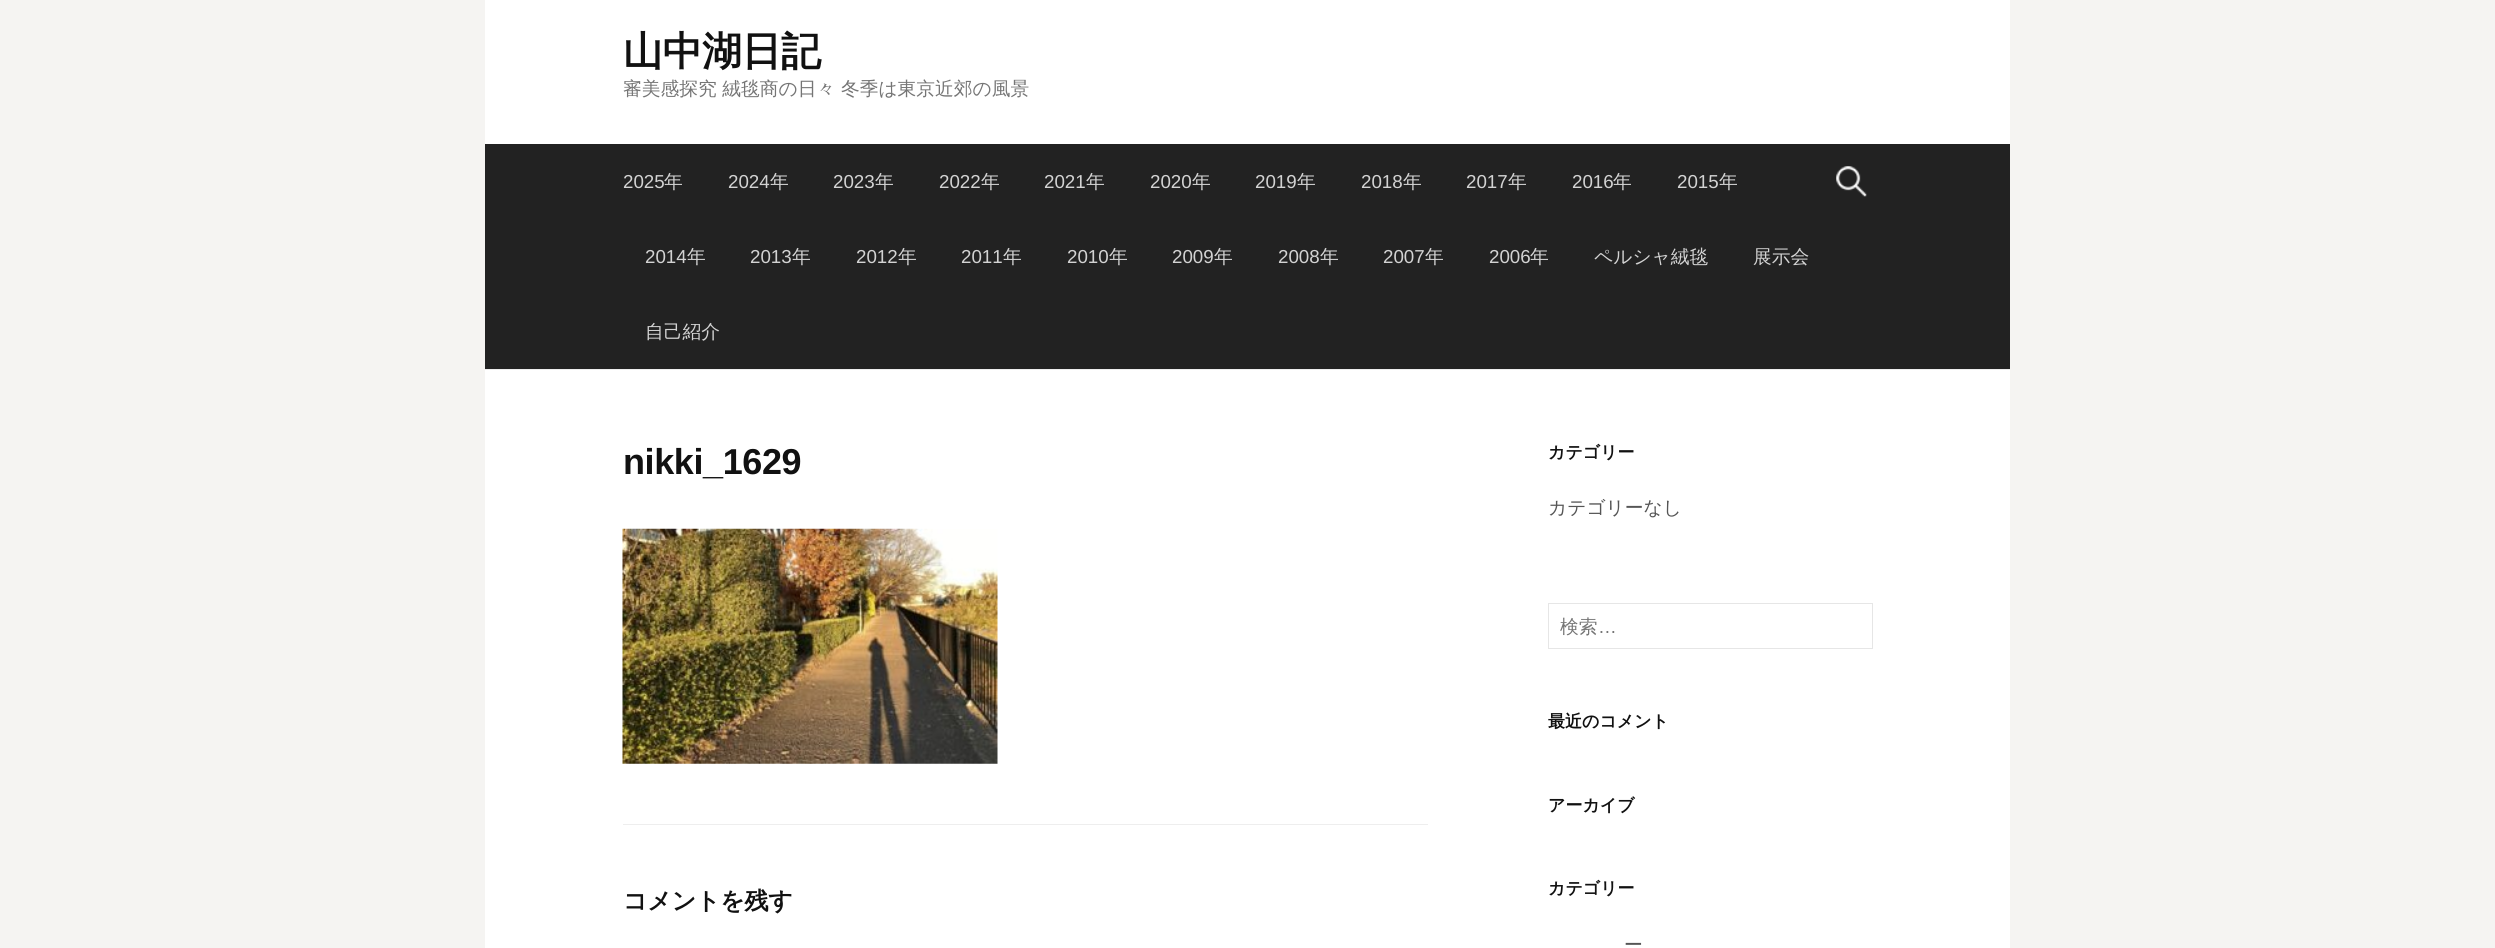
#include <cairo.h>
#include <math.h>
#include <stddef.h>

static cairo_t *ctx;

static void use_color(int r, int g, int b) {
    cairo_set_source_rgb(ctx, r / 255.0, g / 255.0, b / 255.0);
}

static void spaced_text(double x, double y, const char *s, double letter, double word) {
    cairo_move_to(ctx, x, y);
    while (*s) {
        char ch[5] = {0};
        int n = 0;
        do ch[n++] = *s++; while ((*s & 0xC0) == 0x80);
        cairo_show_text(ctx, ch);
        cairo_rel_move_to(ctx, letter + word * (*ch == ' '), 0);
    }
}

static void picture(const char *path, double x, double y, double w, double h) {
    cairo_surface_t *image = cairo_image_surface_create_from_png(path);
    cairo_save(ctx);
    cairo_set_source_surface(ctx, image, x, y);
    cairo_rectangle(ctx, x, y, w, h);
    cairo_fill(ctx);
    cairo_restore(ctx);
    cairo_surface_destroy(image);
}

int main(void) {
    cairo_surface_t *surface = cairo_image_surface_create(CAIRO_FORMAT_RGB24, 2495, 948);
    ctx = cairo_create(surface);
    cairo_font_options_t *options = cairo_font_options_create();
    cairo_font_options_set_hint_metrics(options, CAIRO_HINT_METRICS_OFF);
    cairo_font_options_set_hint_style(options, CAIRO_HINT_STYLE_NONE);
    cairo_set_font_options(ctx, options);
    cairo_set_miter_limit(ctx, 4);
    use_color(245, 244, 242);
    cairo_paint(ctx);
    use_color(255, 255, 255);
    cairo_rectangle(ctx, 485, 0, 1525, 948);
    cairo_fill(ctx);
    use_color(238, 238, 238);
    cairo_rectangle(ctx, 485, 369, 1525, 1);
    cairo_fill(ctx);
    cairo_select_font_face(ctx, "WenQuanYi Zen Hei", CAIRO_FONT_SLANT_NORMAL, CAIRO_FONT_WEIGHT_BOLD);
    cairo_set_font_size(ctx, 40);
    use_color(17, 17, 17);
    spaced_text(623, 65, "山中湖日記", -0.5, 0);
    cairo_select_font_face(ctx, "WenQuanYi Zen Hei Medium", CAIRO_FONT_SLANT_NORMAL, CAIRO_FONT_WEIGHT_NORMAL);
    cairo_set_font_size(ctx, 18.75);
    use_color(117, 117, 117);
    cairo_move_to(ctx, 623, 95);
    cairo_show_text(ctx, "審美感探究 絨毯商の日々 冬季は東京近郊の風景");
    use_color(34, 34, 34);
    cairo_rectangle(ctx, 485, 144, 1525, 225);
    cairo_fill(ctx);
    cairo_select_font_face(ctx, "Liberation Sans", CAIRO_FONT_SLANT_NORMAL, CAIRO_FONT_WEIGHT_NORMAL);
    use_color(211, 211, 211);
    cairo_move_to(ctx, 623, 188);
    cairo_show_text(ctx, "2025");
    cairo_select_font_face(ctx, "WenQuanYi Zen Hei Medium", CAIRO_FONT_SLANT_NORMAL, CAIRO_FONT_WEIGHT_NORMAL);
    cairo_move_to(ctx, 664, 188);
    cairo_show_text(ctx, "年");
    cairo_select_font_face(ctx, "Liberation Sans", CAIRO_FONT_SLANT_NORMAL, CAIRO_FONT_WEIGHT_NORMAL);
    cairo_move_to(ctx, 728, 188);
    cairo_show_text(ctx, "2024");
    cairo_select_font_face(ctx, "WenQuanYi Zen Hei Medium", CAIRO_FONT_SLANT_NORMAL, CAIRO_FONT_WEIGHT_NORMAL);
    cairo_move_to(ctx, 770, 188);
    cairo_show_text(ctx, "年");
    cairo_select_font_face(ctx, "Liberation Sans", CAIRO_FONT_SLANT_NORMAL, CAIRO_FONT_WEIGHT_NORMAL);
    cairo_move_to(ctx, 833, 188);
    cairo_show_text(ctx, "2023");
    cairo_select_font_face(ctx, "WenQuanYi Zen Hei Medium", CAIRO_FONT_SLANT_NORMAL, CAIRO_FONT_WEIGHT_NORMAL);
    cairo_move_to(ctx, 875, 188);
    cairo_show_text(ctx, "年");
    cairo_select_font_face(ctx, "Liberation Sans", CAIRO_FONT_SLANT_NORMAL, CAIRO_FONT_WEIGHT_NORMAL);
    cairo_move_to(ctx, 939, 188);
    cairo_show_text(ctx, "2022");
    cairo_select_font_face(ctx, "WenQuanYi Zen Hei Medium", CAIRO_FONT_SLANT_NORMAL, CAIRO_FONT_WEIGHT_NORMAL);
    cairo_move_to(ctx, 981, 188);
    cairo_show_text(ctx, "年");
    cairo_select_font_face(ctx, "Liberation Sans", CAIRO_FONT_SLANT_NORMAL, CAIRO_FONT_WEIGHT_NORMAL);
    cairo_move_to(ctx, 1044, 188);
    cairo_show_text(ctx, "2021");
    cairo_select_font_face(ctx, "WenQuanYi Zen Hei Medium", CAIRO_FONT_SLANT_NORMAL, CAIRO_FONT_WEIGHT_NORMAL);
    cairo_move_to(ctx, 1086, 188);
    cairo_show_text(ctx, "年");
    cairo_select_font_face(ctx, "Liberation Sans", CAIRO_FONT_SLANT_NORMAL, CAIRO_FONT_WEIGHT_NORMAL);
    cairo_move_to(ctx, 1150, 188);
    cairo_show_text(ctx, "2020");
    cairo_select_font_face(ctx, "WenQuanYi Zen Hei Medium", CAIRO_FONT_SLANT_NORMAL, CAIRO_FONT_WEIGHT_NORMAL);
    cairo_move_to(ctx, 1192, 188);
    cairo_show_text(ctx, "年");
    cairo_select_font_face(ctx, "Liberation Sans", CAIRO_FONT_SLANT_NORMAL, CAIRO_FONT_WEIGHT_NORMAL);
    cairo_move_to(ctx, 1255, 188);
    cairo_show_text(ctx, "2019");
    cairo_select_font_face(ctx, "WenQuanYi Zen Hei Medium", CAIRO_FONT_SLANT_NORMAL, CAIRO_FONT_WEIGHT_NORMAL);
    cairo_move_to(ctx, 1297, 188);
    cairo_show_text(ctx, "年");
    cairo_select_font_face(ctx, "Liberation Sans", CAIRO_FONT_SLANT_NORMAL, CAIRO_FONT_WEIGHT_NORMAL);
    cairo_move_to(ctx, 1361, 188);
    cairo_show_text(ctx, "2018");
    cairo_select_font_face(ctx, "WenQuanYi Zen Hei Medium", CAIRO_FONT_SLANT_NORMAL, CAIRO_FONT_WEIGHT_NORMAL);
    cairo_move_to(ctx, 1403, 188);
    cairo_show_text(ctx, "年");
    cairo_select_font_face(ctx, "Liberation Sans", CAIRO_FONT_SLANT_NORMAL, CAIRO_FONT_WEIGHT_NORMAL);
    cairo_move_to(ctx, 1466, 188);
    cairo_show_text(ctx, "2017");
    cairo_select_font_face(ctx, "WenQuanYi Zen Hei Medium", CAIRO_FONT_SLANT_NORMAL, CAIRO_FONT_WEIGHT_NORMAL);
    cairo_move_to(ctx, 1508, 188);
    cairo_show_text(ctx, "年");
    cairo_select_font_face(ctx, "Liberation Sans", CAIRO_FONT_SLANT_NORMAL, CAIRO_FONT_WEIGHT_NORMAL);
    cairo_move_to(ctx, 1572, 188);
    cairo_show_text(ctx, "2016");
    cairo_select_font_face(ctx, "WenQuanYi Zen Hei Medium", CAIRO_FONT_SLANT_NORMAL, CAIRO_FONT_WEIGHT_NORMAL);
    cairo_move_to(ctx, 1613, 188);
    cairo_show_text(ctx, "年");
    cairo_select_font_face(ctx, "Liberation Sans", CAIRO_FONT_SLANT_NORMAL, CAIRO_FONT_WEIGHT_NORMAL);
    cairo_move_to(ctx, 1677, 188);
    cairo_show_text(ctx, "2015");
    cairo_select_font_face(ctx, "WenQuanYi Zen Hei Medium", CAIRO_FONT_SLANT_NORMAL, CAIRO_FONT_WEIGHT_NORMAL);
    cairo_move_to(ctx, 1719, 188);
    cairo_show_text(ctx, "年");
    cairo_select_font_face(ctx, "Liberation Sans", CAIRO_FONT_SLANT_NORMAL, CAIRO_FONT_WEIGHT_NORMAL);
    cairo_move_to(ctx, 645, 263);
    cairo_show_text(ctx, "2014");
    cairo_select_font_face(ctx, "WenQuanYi Zen Hei Medium", CAIRO_FONT_SLANT_NORMAL, CAIRO_FONT_WEIGHT_NORMAL);
    cairo_move_to(ctx, 687, 263);
    cairo_show_text(ctx, "年");
    cairo_select_font_face(ctx, "Liberation Sans", CAIRO_FONT_SLANT_NORMAL, CAIRO_FONT_WEIGHT_NORMAL);
    cairo_move_to(ctx, 750, 263);
    cairo_show_text(ctx, "2013");
    cairo_select_font_face(ctx, "WenQuanYi Zen Hei Medium", CAIRO_FONT_SLANT_NORMAL, CAIRO_FONT_WEIGHT_NORMAL);
    cairo_move_to(ctx, 792, 263);
    cairo_show_text(ctx, "年");
    cairo_select_font_face(ctx, "Liberation Sans", CAIRO_FONT_SLANT_NORMAL, CAIRO_FONT_WEIGHT_NORMAL);
    cairo_move_to(ctx, 856, 263);
    cairo_show_text(ctx, "2012");
    cairo_select_font_face(ctx, "WenQuanYi Zen Hei Medium", CAIRO_FONT_SLANT_NORMAL, CAIRO_FONT_WEIGHT_NORMAL);
    cairo_move_to(ctx, 898, 263);
    cairo_show_text(ctx, "年");
    cairo_select_font_face(ctx, "Liberation Sans", CAIRO_FONT_SLANT_NORMAL, CAIRO_FONT_WEIGHT_NORMAL);
    cairo_move_to(ctx, 961, 263);
    cairo_show_text(ctx, "2011");
    cairo_select_font_face(ctx, "WenQuanYi Zen Hei Medium", CAIRO_FONT_SLANT_NORMAL, CAIRO_FONT_WEIGHT_NORMAL);
    cairo_move_to(ctx, 1003, 263);
    cairo_show_text(ctx, "年");
    cairo_select_font_face(ctx, "Liberation Sans", CAIRO_FONT_SLANT_NORMAL, CAIRO_FONT_WEIGHT_NORMAL);
    cairo_move_to(ctx, 1067, 263);
    cairo_show_text(ctx, "2010");
    cairo_select_font_face(ctx, "WenQuanYi Zen Hei Medium", CAIRO_FONT_SLANT_NORMAL, CAIRO_FONT_WEIGHT_NORMAL);
    cairo_move_to(ctx, 1109, 263);
    cairo_show_text(ctx, "年");
    cairo_select_font_face(ctx, "Liberation Sans", CAIRO_FONT_SLANT_NORMAL, CAIRO_FONT_WEIGHT_NORMAL);
    cairo_move_to(ctx, 1172, 263);
    cairo_show_text(ctx, "2009");
    cairo_select_font_face(ctx, "WenQuanYi Zen Hei Medium", CAIRO_FONT_SLANT_NORMAL, CAIRO_FONT_WEIGHT_NORMAL);
    cairo_move_to(ctx, 1214, 263);
    cairo_show_text(ctx, "年");
    cairo_select_font_face(ctx, "Liberation Sans", CAIRO_FONT_SLANT_NORMAL, CAIRO_FONT_WEIGHT_NORMAL);
    cairo_move_to(ctx, 1278, 263);
    cairo_show_text(ctx, "2008");
    cairo_select_font_face(ctx, "WenQuanYi Zen Hei Medium", CAIRO_FONT_SLANT_NORMAL, CAIRO_FONT_WEIGHT_NORMAL);
    cairo_move_to(ctx, 1320, 263);
    cairo_show_text(ctx, "年");
    cairo_select_font_face(ctx, "Liberation Sans", CAIRO_FONT_SLANT_NORMAL, CAIRO_FONT_WEIGHT_NORMAL);
    cairo_move_to(ctx, 1383, 263);
    cairo_show_text(ctx, "2007");
    cairo_select_font_face(ctx, "WenQuanYi Zen Hei Medium", CAIRO_FONT_SLANT_NORMAL, CAIRO_FONT_WEIGHT_NORMAL);
    cairo_move_to(ctx, 1425, 263);
    cairo_show_text(ctx, "年");
    cairo_select_font_face(ctx, "Liberation Sans", CAIRO_FONT_SLANT_NORMAL, CAIRO_FONT_WEIGHT_NORMAL);
    cairo_move_to(ctx, 1489, 263);
    cairo_show_text(ctx, "2006");
    cairo_select_font_face(ctx, "WenQuanYi Zen Hei Medium", CAIRO_FONT_SLANT_NORMAL, CAIRO_FONT_WEIGHT_NORMAL);
    cairo_move_to(ctx, 1530, 263);
    cairo_show_text(ctx, "年");
    cairo_move_to(ctx, 1594, 263);
    cairo_show_text(ctx, "ペルシャ絨毯");
    cairo_move_to(ctx, 1753, 263);
    cairo_show_text(ctx, "展示会");
    cairo_move_to(ctx, 645, 338);
    cairo_show_text(ctx, "自己紹介");
    picture("img1.png", 1836, 166, 31, 31);
    use_color(238, 238, 238);
    cairo_rectangle(ctx, 623, 824, 805, 1);
    cairo_fill(ctx);
    cairo_select_font_face(ctx, "Liberation Sans", CAIRO_FONT_SLANT_NORMAL, CAIRO_FONT_WEIGHT_BOLD);
    cairo_set_font_size(ctx, 36);
    use_color(17, 17, 17);
    spaced_text(623, 474, "nikki_1629", -0.4, 0);
    picture("img2.png", 622, 528, 376, 236);
    cairo_select_font_face(ctx, "WenQuanYi Zen Hei", CAIRO_FONT_SLANT_NORMAL, CAIRO_FONT_WEIGHT_BOLD);
    cairo_set_font_size(ctx, 24);
    spaced_text(623, 909, "コメントを残す", -0.25, 0);
    cairo_set_font_size(ctx, 17);
    cairo_move_to(ctx, 1548, 458);
    cairo_show_text(ctx, "カテゴリー");
    cairo_select_font_face(ctx, "WenQuanYi Zen Hei Medium", CAIRO_FONT_SLANT_NORMAL, CAIRO_FONT_WEIGHT_NORMAL);
    cairo_set_font_size(ctx, 18.75);
    use_color(85, 85, 85);
    cairo_move_to(ctx, 1548, 514);
    cairo_show_text(ctx, "カテゴリーなし");
    cairo_rectangle(ctx, 1548.5, 603.5, 324, 45);
    use_color(230, 230, 230);
    cairo_set_line_width(ctx, 1);
    cairo_stroke(ctx);
    use_color(117, 117, 117);
    cairo_move_to(ctx, 1560, 633);
    cairo_show_text(ctx, "検索");
    cairo_select_font_face(ctx, "Liberation Sans", CAIRO_FONT_SLANT_NORMAL, CAIRO_FONT_WEIGHT_NORMAL);
    cairo_move_to(ctx, 1598, 633);
    cairo_show_text(ctx, "…");
    cairo_select_font_face(ctx, "WenQuanYi Zen Hei", CAIRO_FONT_SLANT_NORMAL, CAIRO_FONT_WEIGHT_BOLD);
    cairo_set_font_size(ctx, 17);
    use_color(17, 17, 17);
    cairo_move_to(ctx, 1548, 727);
    cairo_show_text(ctx, "最近のコメント");
    cairo_move_to(ctx, 1548, 811);
    cairo_show_text(ctx, "アーカイブ");
    cairo_move_to(ctx, 1548, 894);
    cairo_show_text(ctx, "カテゴリー");
    cairo_select_font_face(ctx, "WenQuanYi Zen Hei Medium", CAIRO_FONT_SLANT_NORMAL, CAIRO_FONT_WEIGHT_NORMAL);
    cairo_set_font_size(ctx, 18.75);
    use_color(85, 85, 85);
    cairo_move_to(ctx, 1624, 951);
    cairo_show_text(ctx, "ー");
    cairo_surface_write_to_png(surface, "result.png");
    cairo_font_options_destroy(options);
    cairo_destroy(ctx);
    cairo_surface_destroy(surface);
    return 0;
}
